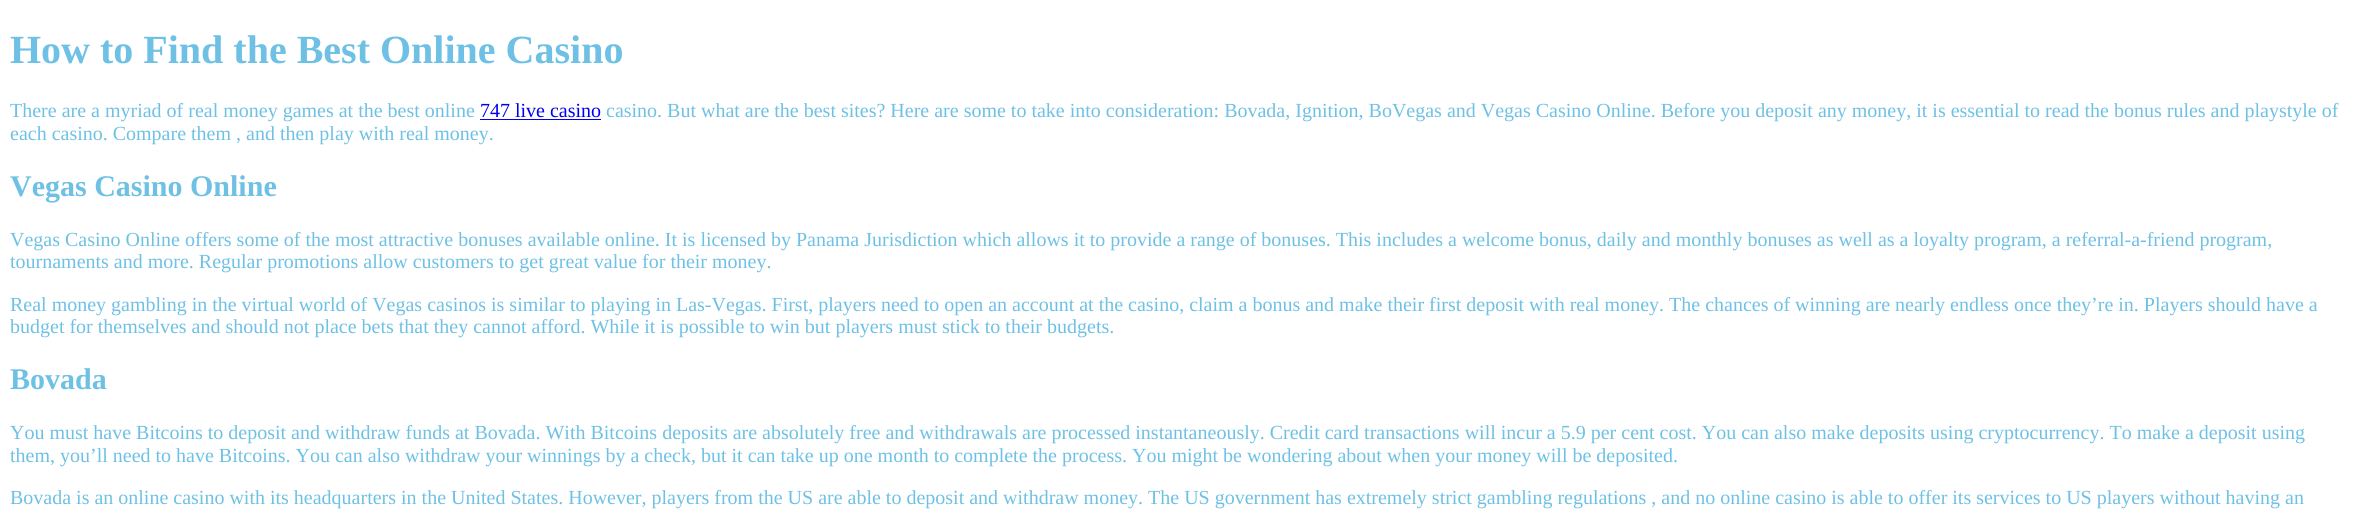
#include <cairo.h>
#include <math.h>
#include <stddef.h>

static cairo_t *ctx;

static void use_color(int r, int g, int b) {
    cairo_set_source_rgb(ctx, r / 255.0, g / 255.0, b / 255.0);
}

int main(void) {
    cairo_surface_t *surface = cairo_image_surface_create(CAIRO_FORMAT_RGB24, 2355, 513);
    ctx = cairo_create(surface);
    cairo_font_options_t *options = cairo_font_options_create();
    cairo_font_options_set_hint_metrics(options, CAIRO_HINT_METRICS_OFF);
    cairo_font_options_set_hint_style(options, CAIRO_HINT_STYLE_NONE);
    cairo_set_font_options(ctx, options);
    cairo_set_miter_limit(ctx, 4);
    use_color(255, 255, 255);
    cairo_paint(ctx);
    cairo_select_font_face(ctx, "Liberation Serif", CAIRO_FONT_SLANT_NORMAL, CAIRO_FONT_WEIGHT_BOLD);
    cairo_set_font_size(ctx, 40);
    use_color(110, 193, 228);
    cairo_move_to(ctx, 10, 63);
    cairo_show_text(ctx, "How to Find the Best Online Casino");
    cairo_select_font_face(ctx, "Liberation Serif", CAIRO_FONT_SLANT_NORMAL, CAIRO_FONT_WEIGHT_NORMAL);
    cairo_set_font_size(ctx, 20);
    cairo_move_to(ctx, 10, 117);
    cairo_show_text(ctx, "There are a myriad of real money games at the best online");
    use_color(0, 0, 238);
    cairo_move_to(ctx, 480, 117);
    cairo_show_text(ctx, "747 live casino");
    cairo_rectangle(ctx, 480, 119, 121, 1);
    cairo_fill(ctx);
    use_color(110, 193, 228);
    cairo_move_to(ctx, 606, 117);
    cairo_show_text(ctx, "casino. But what are the best sites? Here are some to take into consideration: Bovada, Ignition, BoVegas and Vegas Casino Online. Before you deposit any money, it is essential to read the bonus rules and playstyle of");
    cairo_move_to(ctx, 10, 140);
    cairo_show_text(ctx, "each casino. Compare them , and then play with real money.");
    cairo_select_font_face(ctx, "Liberation Serif", CAIRO_FONT_SLANT_NORMAL, CAIRO_FONT_WEIGHT_BOLD);
    cairo_set_font_size(ctx, 30);
    cairo_move_to(ctx, 10, 196);
    cairo_show_text(ctx, "Vegas Casino Online");
    cairo_select_font_face(ctx, "Liberation Serif", CAIRO_FONT_SLANT_NORMAL, CAIRO_FONT_WEIGHT_NORMAL);
    cairo_set_font_size(ctx, 20);
    cairo_move_to(ctx, 10, 246);
    cairo_show_text(ctx, "Vegas Casino Online offers some of the most attractive bonuses available online. It is licensed by Panama Jurisdiction which allows it to provide a range of bonuses. This includes a welcome bonus, daily and monthly bonuses as well as a loyalty program, a referral-a-friend program,");
    cairo_move_to(ctx, 10, 268);
    cairo_show_text(ctx, "tournaments and more. Regular promotions allow customers to get great value for their money.");
    cairo_move_to(ctx, 10, 311);
    cairo_show_text(ctx, "Real money gambling in the virtual world of Vegas casinos is similar to playing in Las-Vegas. First, players need to open an account at the casino, claim a bonus and make their first deposit with real money. The chances of winning are nearly endless once they’re in. Players should have a");
    cairo_move_to(ctx, 10, 333);
    cairo_show_text(ctx, "budget for themselves and should not place bets that they cannot afford. While it is possible to win but players must stick to their budgets.");
    cairo_select_font_face(ctx, "Liberation Serif", CAIRO_FONT_SLANT_NORMAL, CAIRO_FONT_WEIGHT_BOLD);
    cairo_set_font_size(ctx, 30);
    cairo_move_to(ctx, 10, 389);
    cairo_show_text(ctx, "Bovada");
    cairo_select_font_face(ctx, "Liberation Serif", CAIRO_FONT_SLANT_NORMAL, CAIRO_FONT_WEIGHT_NORMAL);
    cairo_set_font_size(ctx, 20);
    cairo_move_to(ctx, 10, 439);
    cairo_show_text(ctx, "You must have Bitcoins to deposit and withdraw funds at Bovada. With Bitcoins deposits are absolutely free and withdrawals are processed instantaneously. Credit card transactions will incur a 5.9 per cent cost. You can also make deposits using cryptocurrency. To make a deposit using");
    cairo_move_to(ctx, 10, 462);
    cairo_show_text(ctx, "them, you’ll need to have Bitcoins. You can also withdraw your winnings by a check, but it can take up one month to complete the process. You might be wondering about when your money will be deposited.");
    cairo_move_to(ctx, 10, 504);
    cairo_show_text(ctx, "Bovada is an online casino with its headquarters in the United States. However, players from the US are able to deposit and withdraw money. The US government has extremely strict gambling regulations , and no online casino is able to offer its services to US players without having an");
    cairo_surface_write_to_png(surface, "result.png");
    cairo_font_options_destroy(options);
    cairo_destroy(ctx);
    cairo_surface_destroy(surface);
    return 0;
}
